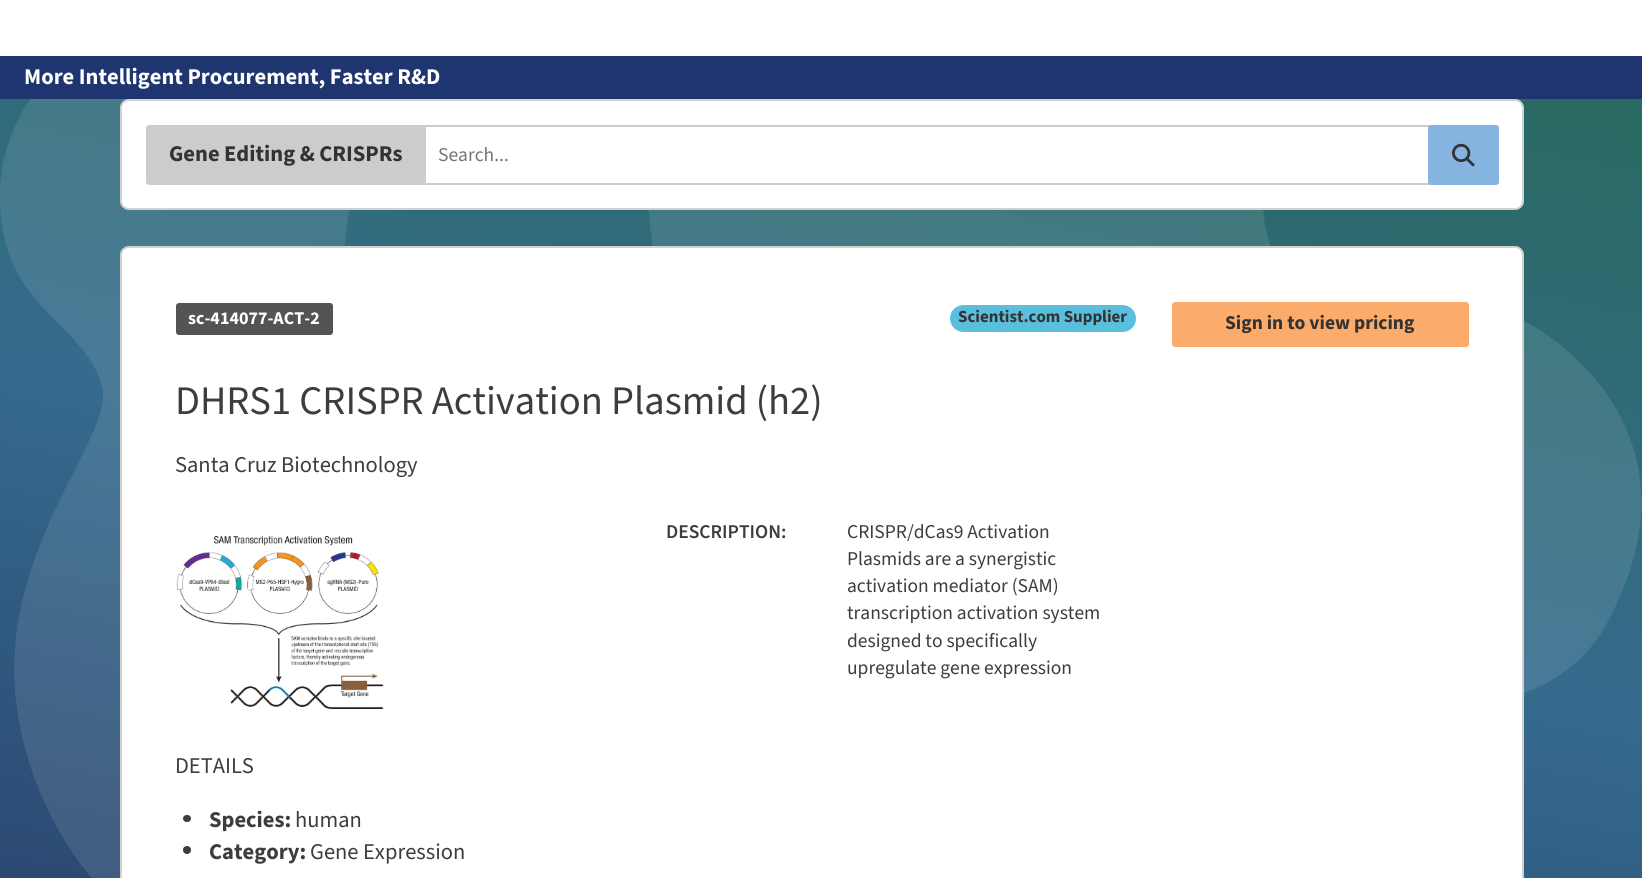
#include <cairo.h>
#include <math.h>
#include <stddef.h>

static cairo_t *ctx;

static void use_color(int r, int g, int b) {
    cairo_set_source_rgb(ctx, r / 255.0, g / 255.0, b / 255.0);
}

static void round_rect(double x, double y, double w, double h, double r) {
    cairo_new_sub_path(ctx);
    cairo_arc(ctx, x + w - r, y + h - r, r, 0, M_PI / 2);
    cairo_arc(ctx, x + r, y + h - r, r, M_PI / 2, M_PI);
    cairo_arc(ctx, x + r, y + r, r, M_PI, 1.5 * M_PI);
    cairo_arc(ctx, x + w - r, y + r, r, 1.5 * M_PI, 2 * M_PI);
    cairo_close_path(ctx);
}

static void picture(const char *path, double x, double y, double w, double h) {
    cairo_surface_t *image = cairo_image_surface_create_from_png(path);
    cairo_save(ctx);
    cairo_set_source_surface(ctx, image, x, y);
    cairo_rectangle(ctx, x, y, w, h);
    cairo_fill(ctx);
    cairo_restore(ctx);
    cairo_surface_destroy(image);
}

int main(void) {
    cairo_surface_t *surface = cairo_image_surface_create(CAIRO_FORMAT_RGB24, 1642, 878);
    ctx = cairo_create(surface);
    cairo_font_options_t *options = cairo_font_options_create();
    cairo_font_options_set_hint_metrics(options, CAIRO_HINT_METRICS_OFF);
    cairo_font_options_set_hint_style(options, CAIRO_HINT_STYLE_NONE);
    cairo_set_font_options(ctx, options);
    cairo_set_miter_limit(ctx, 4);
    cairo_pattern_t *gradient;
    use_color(255, 255, 255);
    cairo_paint(ctx);
    use_color(31, 53, 111);
    cairo_rectangle(ctx, 0, 56, 1642, 43);
    cairo_fill(ctx);
    cairo_select_font_face(ctx, "Source Sans 3", CAIRO_FONT_SLANT_NORMAL, CAIRO_FONT_WEIGHT_BOLD);
    cairo_set_font_size(ctx, 22.5);
    use_color(255, 255, 255);
    cairo_move_to(ctx, 24, 84);
    cairo_show_text(ctx, "More Intelligent Procurement, Faster R&D");
    gradient = cairo_pattern_create_linear(686, 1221, 956, -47);
    cairo_pattern_add_color_stop_rgba(gradient, 0, 0.153, 0.235, 0.408, 1);
    cairo_pattern_add_color_stop_rgba(gradient, 0.54, 0.208, 0.42, 0.553, 1);
    cairo_pattern_add_color_stop_rgba(gradient, 1, 0.161, 0.416, 0.38, 1);
    cairo_set_source(ctx, gradient);
    cairo_pattern_destroy(gradient);
    cairo_rectangle(ctx, 0, 99, 1642, 779);
    cairo_fill(ctx);
    picture("img1.png", 0, 99, 1642, 779);
    use_color(255, 255, 255);
    round_rect(120, 99, 1404, 111, 9);
    cairo_fill(ctx);
    round_rect(121, 100, 1402, 109, 8);
    cairo_set_source_rgba(ctx, 0, 0, 0, 0.18);
    cairo_stroke(ctx);
    cairo_rectangle(ctx, 424, 126, 1005, 58);
    use_color(204, 204, 204);
    cairo_stroke(ctx);
    round_rect(146, 125, 280, 60, 3);
    cairo_fill(ctx);
    use_color(51, 51, 51);
    cairo_move_to(ctx, 169, 161);
    cairo_show_text(ctx, "Gene Editing & CRISPRs");
    cairo_select_font_face(ctx, "Source Sans 3", CAIRO_FONT_SLANT_NORMAL, CAIRO_FONT_WEIGHT_NORMAL);
    cairo_set_font_size(ctx, 19.5);
    use_color(117, 117, 117);
    cairo_move_to(ctx, 438, 161);
    cairo_show_text(ctx, "Search...");
    use_color(133, 180, 224);
    round_rect(1428, 125, 71, 60, 3);
    cairo_fill(ctx);
    picture("img2.png", 1452, 143, 23, 24);
    use_color(255, 255, 255);
    round_rect(120, 246, 1404, 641, 9);
    cairo_fill(ctx);
    round_rect(121, 247, 1402, 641, 8);
    cairo_set_source_rgba(ctx, 0, 0, 0, 0.18);
    cairo_stroke(ctx);
    use_color(84, 84, 84);
    round_rect(176, 303, 157, 32, 3);
    cairo_fill(ctx);
    cairo_select_font_face(ctx, "Source Sans 3", CAIRO_FONT_SLANT_NORMAL, CAIRO_FONT_WEIGHT_BOLD);
    cairo_set_font_size(ctx, 18);
    use_color(255, 255, 255);
    cairo_move_to(ctx, 188, 324);
    cairo_show_text(ctx, "sc-414077-ACT-2");
    use_color(90, 191, 221);
    round_rect(950, 305, 186, 27, 13.5);
    cairo_fill(ctx);
    cairo_set_font_size(ctx, 16.9);
    use_color(51, 51, 51);
    cairo_move_to(ctx, 958, 322);
    cairo_show_text(ctx, "Scientist.com Supplier");
    cairo_select_font_face(ctx, "Source Sans 3", CAIRO_FONT_SLANT_NORMAL, CAIRO_FONT_WEIGHT_NORMAL);
    cairo_set_font_size(ctx, 40.5);
    use_color(61, 61, 61);
    cairo_move_to(ctx, 175, 414);
    cairo_show_text(ctx, "DHRS1 CRISPR Activation Plasmid (h2)");
    cairo_set_font_size(ctx, 22.5);
    cairo_move_to(ctx, 175, 472);
    cairo_show_text(ctx, "Santa Cruz Biotechnology");
    picture("img3.png", 176, 536, 208, 174);
    cairo_select_font_face(ctx, "Source Sans 3 SemiBold", CAIRO_FONT_SLANT_NORMAL, CAIRO_FONT_WEIGHT_NORMAL);
    cairo_set_font_size(ctx, 19.5);
    cairo_move_to(ctx, 666, 538);
    cairo_show_text(ctx, "DESCRIPTION:");
    cairo_select_font_face(ctx, "Source Sans 3", CAIRO_FONT_SLANT_NORMAL, CAIRO_FONT_WEIGHT_NORMAL);
    cairo_move_to(ctx, 847, 538);
    cairo_show_text(ctx, "CRISPR/dCas9 Activation");
    cairo_move_to(ctx, 847, 565);
    cairo_show_text(ctx, "Plasmids are a synergistic");
    cairo_move_to(ctx, 847, 592);
    cairo_show_text(ctx, "activation mediator (SAM)");
    cairo_move_to(ctx, 847, 619);
    cairo_show_text(ctx, "transcription activation system");
    cairo_move_to(ctx, 847, 647);
    cairo_show_text(ctx, "designed to specifically");
    cairo_move_to(ctx, 847, 674);
    cairo_show_text(ctx, "upregulate gene expression");
    cairo_set_font_size(ctx, 22.5);
    cairo_move_to(ctx, 175, 773);
    cairo_show_text(ctx, "DETAILS");
    round_rect(183, 815, 8, 7, 3.5);
    cairo_fill(ctx);
    cairo_select_font_face(ctx, "Source Sans 3", CAIRO_FONT_SLANT_NORMAL, CAIRO_FONT_WEIGHT_BOLD);
    cairo_move_to(ctx, 209, 827);
    cairo_show_text(ctx, "Species:");
    cairo_select_font_face(ctx, "Source Sans 3", CAIRO_FONT_SLANT_NORMAL, CAIRO_FONT_WEIGHT_NORMAL);
    cairo_move_to(ctx, 295, 827);
    cairo_show_text(ctx, "human");
    cairo_new_path(ctx);
    cairo_arc(ctx, 187, 850, 4, 0, 2 * M_PI);
    cairo_fill(ctx);
    cairo_select_font_face(ctx, "Source Sans 3", CAIRO_FONT_SLANT_NORMAL, CAIRO_FONT_WEIGHT_BOLD);
    cairo_move_to(ctx, 209, 859);
    cairo_show_text(ctx, "Category:");
    cairo_select_font_face(ctx, "Source Sans 3", CAIRO_FONT_SLANT_NORMAL, CAIRO_FONT_WEIGHT_NORMAL);
    cairo_move_to(ctx, 310, 859);
    cairo_show_text(ctx, "Gene Expression");
    use_color(251, 171, 106);
    round_rect(1172, 302, 297, 45, 3);
    cairo_fill(ctx);
    cairo_select_font_face(ctx, "Source Sans 3", CAIRO_FONT_SLANT_NORMAL, CAIRO_FONT_WEIGHT_BOLD);
    cairo_set_font_size(ctx, 19.5);
    use_color(51, 51, 51);
    cairo_move_to(ctx, 1225, 329);
    cairo_show_text(ctx, "Sign in to view pricing");
    cairo_surface_write_to_png(surface, "result.png");
    cairo_font_options_destroy(options);
    cairo_destroy(ctx);
    cairo_surface_destroy(surface);
    return 0;
}
